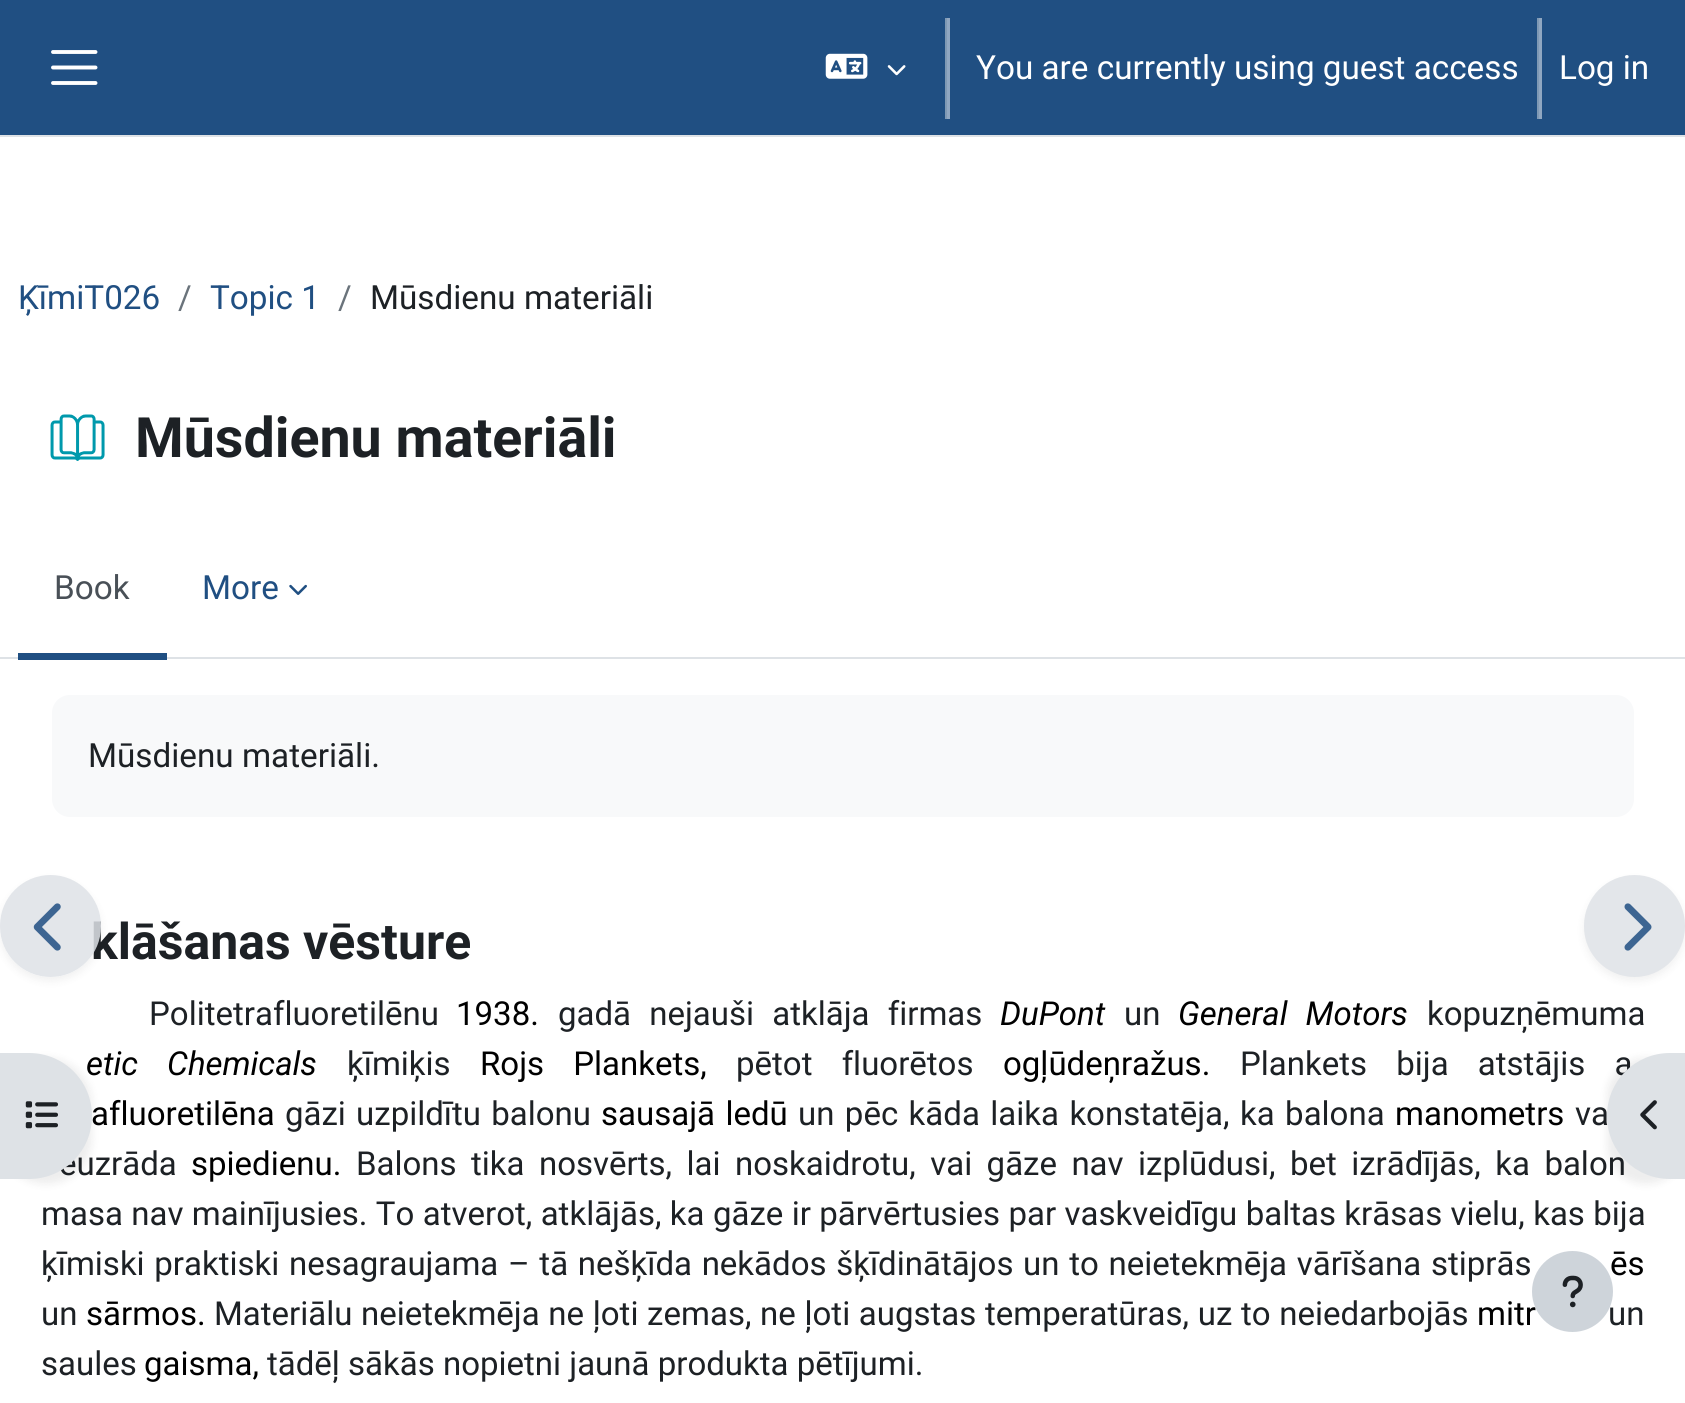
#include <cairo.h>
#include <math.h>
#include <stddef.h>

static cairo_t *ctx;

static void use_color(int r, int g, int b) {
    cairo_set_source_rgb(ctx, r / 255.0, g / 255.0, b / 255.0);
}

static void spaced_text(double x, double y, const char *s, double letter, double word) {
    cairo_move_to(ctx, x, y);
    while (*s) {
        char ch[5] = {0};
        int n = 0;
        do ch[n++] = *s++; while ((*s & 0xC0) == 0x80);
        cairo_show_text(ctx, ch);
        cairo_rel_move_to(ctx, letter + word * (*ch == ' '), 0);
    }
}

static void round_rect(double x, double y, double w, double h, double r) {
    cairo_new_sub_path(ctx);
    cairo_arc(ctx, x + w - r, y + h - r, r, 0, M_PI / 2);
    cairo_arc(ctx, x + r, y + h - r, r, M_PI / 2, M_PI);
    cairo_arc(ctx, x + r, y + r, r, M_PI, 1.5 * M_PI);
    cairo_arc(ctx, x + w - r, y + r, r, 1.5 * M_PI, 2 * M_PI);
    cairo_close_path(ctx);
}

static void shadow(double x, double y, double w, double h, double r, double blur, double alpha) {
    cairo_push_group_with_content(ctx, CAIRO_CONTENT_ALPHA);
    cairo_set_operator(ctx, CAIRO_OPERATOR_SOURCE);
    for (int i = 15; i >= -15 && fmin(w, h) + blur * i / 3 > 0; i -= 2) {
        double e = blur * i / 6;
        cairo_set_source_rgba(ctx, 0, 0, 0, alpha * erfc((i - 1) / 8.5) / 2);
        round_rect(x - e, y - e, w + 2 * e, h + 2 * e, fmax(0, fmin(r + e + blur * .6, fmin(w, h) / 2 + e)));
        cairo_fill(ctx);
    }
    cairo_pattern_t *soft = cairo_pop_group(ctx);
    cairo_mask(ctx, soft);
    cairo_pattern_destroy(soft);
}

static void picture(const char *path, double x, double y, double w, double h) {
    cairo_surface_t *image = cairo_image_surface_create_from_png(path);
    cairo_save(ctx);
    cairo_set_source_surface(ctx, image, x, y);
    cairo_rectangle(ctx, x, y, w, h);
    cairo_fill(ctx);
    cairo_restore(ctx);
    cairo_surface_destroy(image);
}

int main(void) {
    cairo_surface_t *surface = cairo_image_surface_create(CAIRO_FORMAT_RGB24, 1685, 1403);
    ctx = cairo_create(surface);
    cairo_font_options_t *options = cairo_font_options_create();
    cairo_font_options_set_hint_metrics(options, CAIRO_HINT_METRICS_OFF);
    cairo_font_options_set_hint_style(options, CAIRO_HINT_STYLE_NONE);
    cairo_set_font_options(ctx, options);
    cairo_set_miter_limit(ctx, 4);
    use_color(255, 255, 255);
    cairo_paint(ctx);
    use_color(32, 79, 130);
    cairo_rectangle(ctx, 0, 0, 1685, 135);
    cairo_fill(ctx);
    use_color(222, 226, 230);
    cairo_rectangle(ctx, 0, 135, 1685, 2);
    cairo_fill(ctx);
    cairo_new_path(ctx);
    cairo_move_to(ctx, 53, 52);
    cairo_line_to(ctx, 95.5, 52);
    cairo_move_to(ctx, 53, 67.5);
    cairo_line_to(ctx, 95.5, 67.5);
    cairo_move_to(ctx, 53, 83);
    cairo_line_to(ctx, 95.5, 83);
    use_color(255, 255, 255);
    cairo_set_line_width(ctx, 3.9);
    cairo_set_line_cap(ctx, CAIRO_LINE_CAP_ROUND);
    cairo_stroke(ctx);
    picture("img1.png", 825, 53, 43, 26);
    picture("img2.png", 887, 65, 19, 11);
    use_color(144, 167, 193);
    cairo_rectangle(ctx, 947, 18, 3, 101);
    cairo_fill(ctx);
    use_color(127, 153, 180);
    cairo_rectangle(ctx, 945, 18, 2, 101);
    cairo_fill(ctx);
    cairo_select_font_face(ctx, "Roboto", CAIRO_FONT_SLANT_NORMAL, CAIRO_FONT_WEIGHT_NORMAL);
    cairo_set_font_size(ctx, 33.25);
    use_color(255, 255, 255);
    cairo_move_to(ctx, 976, 79);
    cairo_show_text(ctx, "You are currently using guest access");
    use_color(144, 167, 193);
    cairo_rectangle(ctx, 1539, 18, 3, 101);
    cairo_fill(ctx);
    use_color(127, 153, 180);
    cairo_rectangle(ctx, 1537, 18, 2, 101);
    cairo_fill(ctx);
    use_color(255, 255, 255);
    cairo_move_to(ctx, 1559, 79);
    cairo_show_text(ctx, "Log in");
    use_color(32, 79, 130);
    cairo_move_to(ctx, 18, 309);
    cairo_show_text(ctx, "ĶīmiT026");
    use_color(106, 115, 123);
    cairo_move_to(ctx, 178, 309);
    cairo_show_text(ctx, "/");
    use_color(32, 79, 130);
    cairo_move_to(ctx, 210, 309);
    cairo_show_text(ctx, "Topic 1");
    use_color(106, 115, 123);
    cairo_move_to(ctx, 338, 309);
    cairo_show_text(ctx, "/");
    use_color(29, 33, 37);
    cairo_move_to(ctx, 370, 309);
    cairo_show_text(ctx, "Mūsdienu materiāli");
    picture("img3.png", 50, 414, 55, 47);
    cairo_select_font_face(ctx, "Roboto", CAIRO_FONT_SLANT_NORMAL, CAIRO_FONT_WEIGHT_BOLD);
    cairo_set_font_size(ctx, 55.6);
    cairo_move_to(ctx, 135, 457);
    cairo_show_text(ctx, "Mūsdienu materiāli");
    use_color(222, 226, 230);
    cairo_rectangle(ctx, 0, 657, 1685, 2);
    cairo_fill(ctx);
    use_color(32, 79, 130);
    cairo_rectangle(ctx, 18, 653, 149, 7);
    cairo_fill(ctx);
    cairo_select_font_face(ctx, "Roboto", CAIRO_FONT_SLANT_NORMAL, CAIRO_FONT_WEIGHT_NORMAL);
    cairo_set_font_size(ctx, 33.25);
    use_color(73, 80, 87);
    cairo_move_to(ctx, 54, 599);
    cairo_show_text(ctx, "Book");
    use_color(32, 79, 130);
    cairo_move_to(ctx, 202, 599);
    cairo_show_text(ctx, "More");
    picture("img4.png", 289, 584, 18, 11);
    use_color(248, 249, 250);
    round_rect(52, 695, 1582, 122, 18);
    cairo_fill(ctx);
    use_color(29, 33, 37);
    cairo_move_to(ctx, 88, 767);
    cairo_show_text(ctx, "Mūsdienu materiāli.");
    cairo_save(ctx);
    cairo_set_fill_rule(ctx, CAIRO_FILL_RULE_EVEN_ODD);
    cairo_new_path(ctx);
    cairo_move_to(ctx, 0, 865);
    cairo_line_to(ctx, 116, 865);
    cairo_line_to(ctx, 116, 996);
    cairo_line_to(ctx, 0, 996);
    cairo_close_path(ctx);
    cairo_move_to(ctx, 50.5, 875);
    cairo_curve_to(ctx, 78.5, 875, 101, 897.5, 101, 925.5);
    cairo_line_to(ctx, 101, 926.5);
    cairo_curve_to(ctx, 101, 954.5, 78.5, 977, 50.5, 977);
    cairo_curve_to(ctx, 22.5, 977, 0, 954.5, 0, 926.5);
    cairo_line_to(ctx, 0, 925.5);
    cairo_curve_to(ctx, 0, 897.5, 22.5, 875, 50.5, 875);
    cairo_close_path(ctx);
    cairo_clip(ctx);
    use_color(0, 0, 0);
    shadow(0, 880, 101, 101, 50.5, 4.5, 0.06);
    cairo_restore(ctx);
    cairo_select_font_face(ctx, "Roboto", CAIRO_FONT_SLANT_NORMAL, CAIRO_FONT_WEIGHT_BOLD);
    cairo_set_font_size(ctx, 50);
    cairo_move_to(ctx, 91, 959);
    cairo_show_text(ctx, "klāšanas vēsture");
    cairo_set_source_rgba(ctx, 0.871, 0.886, 0.902, 0.85);
    round_rect(0, 875, 101, 102, 50.5);
    cairo_fill(ctx);
    picture("img5.png", 33, 903, 28, 48);
    use_color(38, 38, 38);
    shadow(1584, 880, 101, 101, 50.5, 4.5, 0.07);
    use_color(227, 230, 234);
    round_rect(1584, 875, 101, 102, 50.5);
    cairo_fill(ctx);
    picture("img6.png", 1624, 903, 28, 48);
    cairo_select_font_face(ctx, "Roboto", CAIRO_FONT_SLANT_NORMAL, CAIRO_FONT_WEIGHT_NORMAL);
    cairo_set_font_size(ctx, 33);
    use_color(29, 33, 37);
    cairo_move_to(ctx, 149, 1025);
    cairo_show_text(ctx, "Politetrafluoretilēnu");
    use_color(0, 0, 0);
    cairo_move_to(ctx, 456, 1025);
    cairo_show_text(ctx, "1938.");
    use_color(29, 33, 37);
    spaced_text(558, 1025, "gadā nejauši atklāja firmas", 0, 10);
    cairo_select_font_face(ctx, "Roboto", CAIRO_FONT_SLANT_ITALIC, CAIRO_FONT_WEIGHT_NORMAL);
    use_color(0, 0, 0);
    cairo_move_to(ctx, 1000, 1025);
    cairo_show_text(ctx, "DuPont");
    cairo_select_font_face(ctx, "Roboto", CAIRO_FONT_SLANT_NORMAL, CAIRO_FONT_WEIGHT_NORMAL);
    use_color(29, 33, 37);
    cairo_move_to(ctx, 1124, 1025);
    cairo_show_text(ctx, "un");
    cairo_select_font_face(ctx, "Roboto", CAIRO_FONT_SLANT_ITALIC, CAIRO_FONT_WEIGHT_NORMAL);
    use_color(0, 0, 0);
    spaced_text(1178, 1025, "General Motors", 0, 10);
    cairo_select_font_face(ctx, "Roboto", CAIRO_FONT_SLANT_NORMAL, CAIRO_FONT_WEIGHT_NORMAL);
    use_color(29, 33, 37);
    cairo_move_to(ctx, 1427, 1025);
    cairo_show_text(ctx, "kopuzņēmuma");
    cairo_select_font_face(ctx, "Roboto", CAIRO_FONT_SLANT_ITALIC, CAIRO_FONT_WEIGHT_NORMAL);
    use_color(0, 0, 0);
    spaced_text(86, 1075, "etic Chemicals", 0, 21);
    cairo_select_font_face(ctx, "Roboto", CAIRO_FONT_SLANT_NORMAL, CAIRO_FONT_WEIGHT_NORMAL);
    use_color(29, 33, 37);
    cairo_move_to(ctx, 347, 1075);
    cairo_show_text(ctx, "ķīmiķis");
    use_color(0, 0, 0);
    spaced_text(480, 1075, "Rojs Plankets,", 0, 21);
    use_color(29, 33, 37);
    spaced_text(736, 1075, "pētot fluorētos", 0, 21);
    use_color(0, 0, 0);
    cairo_move_to(ctx, 1003, 1075);
    cairo_show_text(ctx, "ogļūdeņražus.");
    use_color(29, 33, 37);
    spaced_text(1240, 1075, "Plankets bija atstājis a", 0, 21);
    use_color(0, 0, 0);
    cairo_move_to(ctx, 91, 1125);
    cairo_show_text(ctx, "afluoretilēna");
    use_color(29, 33, 37);
    spaced_text(285, 1125, "gāzi uzpildītu balonu", 0, 2);
    use_color(0, 0, 0);
    spaced_text(601, 1125, "sausajā ledū", 0, 2.25);
    use_color(29, 33, 37);
    spaced_text(798, 1125, "un pēc kāda laika konstatēja, ka balona", 0, 2.25);
    use_color(0, 0, 0);
    cairo_move_to(ctx, 1395, 1125);
    cairo_show_text(ctx, "manometrs");
    use_color(29, 33, 37);
    cairo_move_to(ctx, 1575, 1125);
    cairo_show_text(ctx, "va");
    cairo_move_to(ctx, 59, 1175);
    cairo_show_text(ctx, "euzrāda");
    use_color(0, 0, 0);
    cairo_move_to(ctx, 191, 1175);
    cairo_show_text(ctx, "spiedienu.");
    use_color(29, 33, 37);
    spaced_text(356, 1175, "Balons tika nosvērts, lai noskaidrotu, vai gāze nav izplūdusi, bet izrādījās, ka balon", 0, 6.25);
    spaced_text(41, 1225, "masa nav mainījusies. To atverot, atklājās, ka gāze ir pārvērtusies par vaskveidīgu baltas krāsas vielu, kas bija", 0, 0.2);
    spaced_text(41, 1275, "ķīmiski praktiski nesagraujama – tā nešķīda nekādos šķīdinātājos un to neietekmēja vārīšana stiprās", 0, 1.5);
    use_color(0, 0, 0);
    cairo_move_to(ctx, 1610, 1275);
    cairo_show_text(ctx, "ēs");
    use_color(29, 33, 37);
    cairo_move_to(ctx, 41, 1325);
    cairo_show_text(ctx, "un");
    use_color(0, 0, 0);
    cairo_move_to(ctx, 86, 1325);
    cairo_show_text(ctx, "sārmos.");
    use_color(29, 33, 37);
    spaced_text(214, 1325, "Materiālu neietekmēja ne ļoti zemas, ne ļoti augstas temperatūras, uz to neiedarbojās", 0, 0.5);
    use_color(0, 0, 0);
    cairo_move_to(ctx, 1477, 1325);
    cairo_show_text(ctx, "mitr");
    use_color(29, 33, 37);
    cairo_move_to(ctx, 1608, 1325);
    cairo_show_text(ctx, "un");
    cairo_move_to(ctx, 41, 1375);
    cairo_show_text(ctx, "saules");
    use_color(0, 0, 0);
    cairo_move_to(ctx, 144, 1375);
    cairo_show_text(ctx, "gaisma,");
    use_color(29, 33, 37);
    cairo_move_to(ctx, 267, 1375);
    cairo_show_text(ctx, "tādēļ sākās nopietni jaunā produkta pētījumi.");
    use_color(0, 0, 0);
    shadow(0, 1058, 92, 126, 63, 4.5, 0.07);
    use_color(222, 226, 230);
    cairo_new_path(ctx);
    cairo_move_to(ctx, 0, 1053);
    cairo_line_to(ctx, 29, 1053);
    cairo_curve_to(ctx, 64, 1053, 92, 1081, 92, 1116);
    cairo_curve_to(ctx, 92, 1151, 64, 1179, 29, 1179);
    cairo_line_to(ctx, 0, 1179);
    cairo_close_path(ctx);
    cairo_fill(ctx);
    picture("img7.png", 25, 1101, 33, 28);
    use_color(0, 0, 0);
    shadow(1607, 1058, 78, 126, 63, 4.5, 0.07);
    use_color(222, 226, 230);
    cairo_new_path(ctx);
    cairo_move_to(ctx, 1670, 1053);
    cairo_line_to(ctx, 1685, 1053);
    cairo_line_to(ctx, 1685, 1179);
    cairo_line_to(ctx, 1670, 1179);
    cairo_curve_to(ctx, 1635, 1179, 1607, 1151, 1607, 1116);
    cairo_curve_to(ctx, 1607, 1081, 1635, 1053, 1670, 1053);
    cairo_close_path(ctx);
    cairo_fill(ctx);
    picture("img8.png", 1640, 1100, 17, 30);
    use_color(206, 212, 218);
    cairo_arc(ctx, 1572.5, 1291.5, 40.5, 0, 2 * M_PI);
    cairo_fill(ctx);
    picture("img9.png", 1562, 1275, 21, 33);
    cairo_surface_write_to_png(surface, "result.png");
    cairo_font_options_destroy(options);
    cairo_destroy(ctx);
    cairo_surface_destroy(surface);
    return 0;
}
